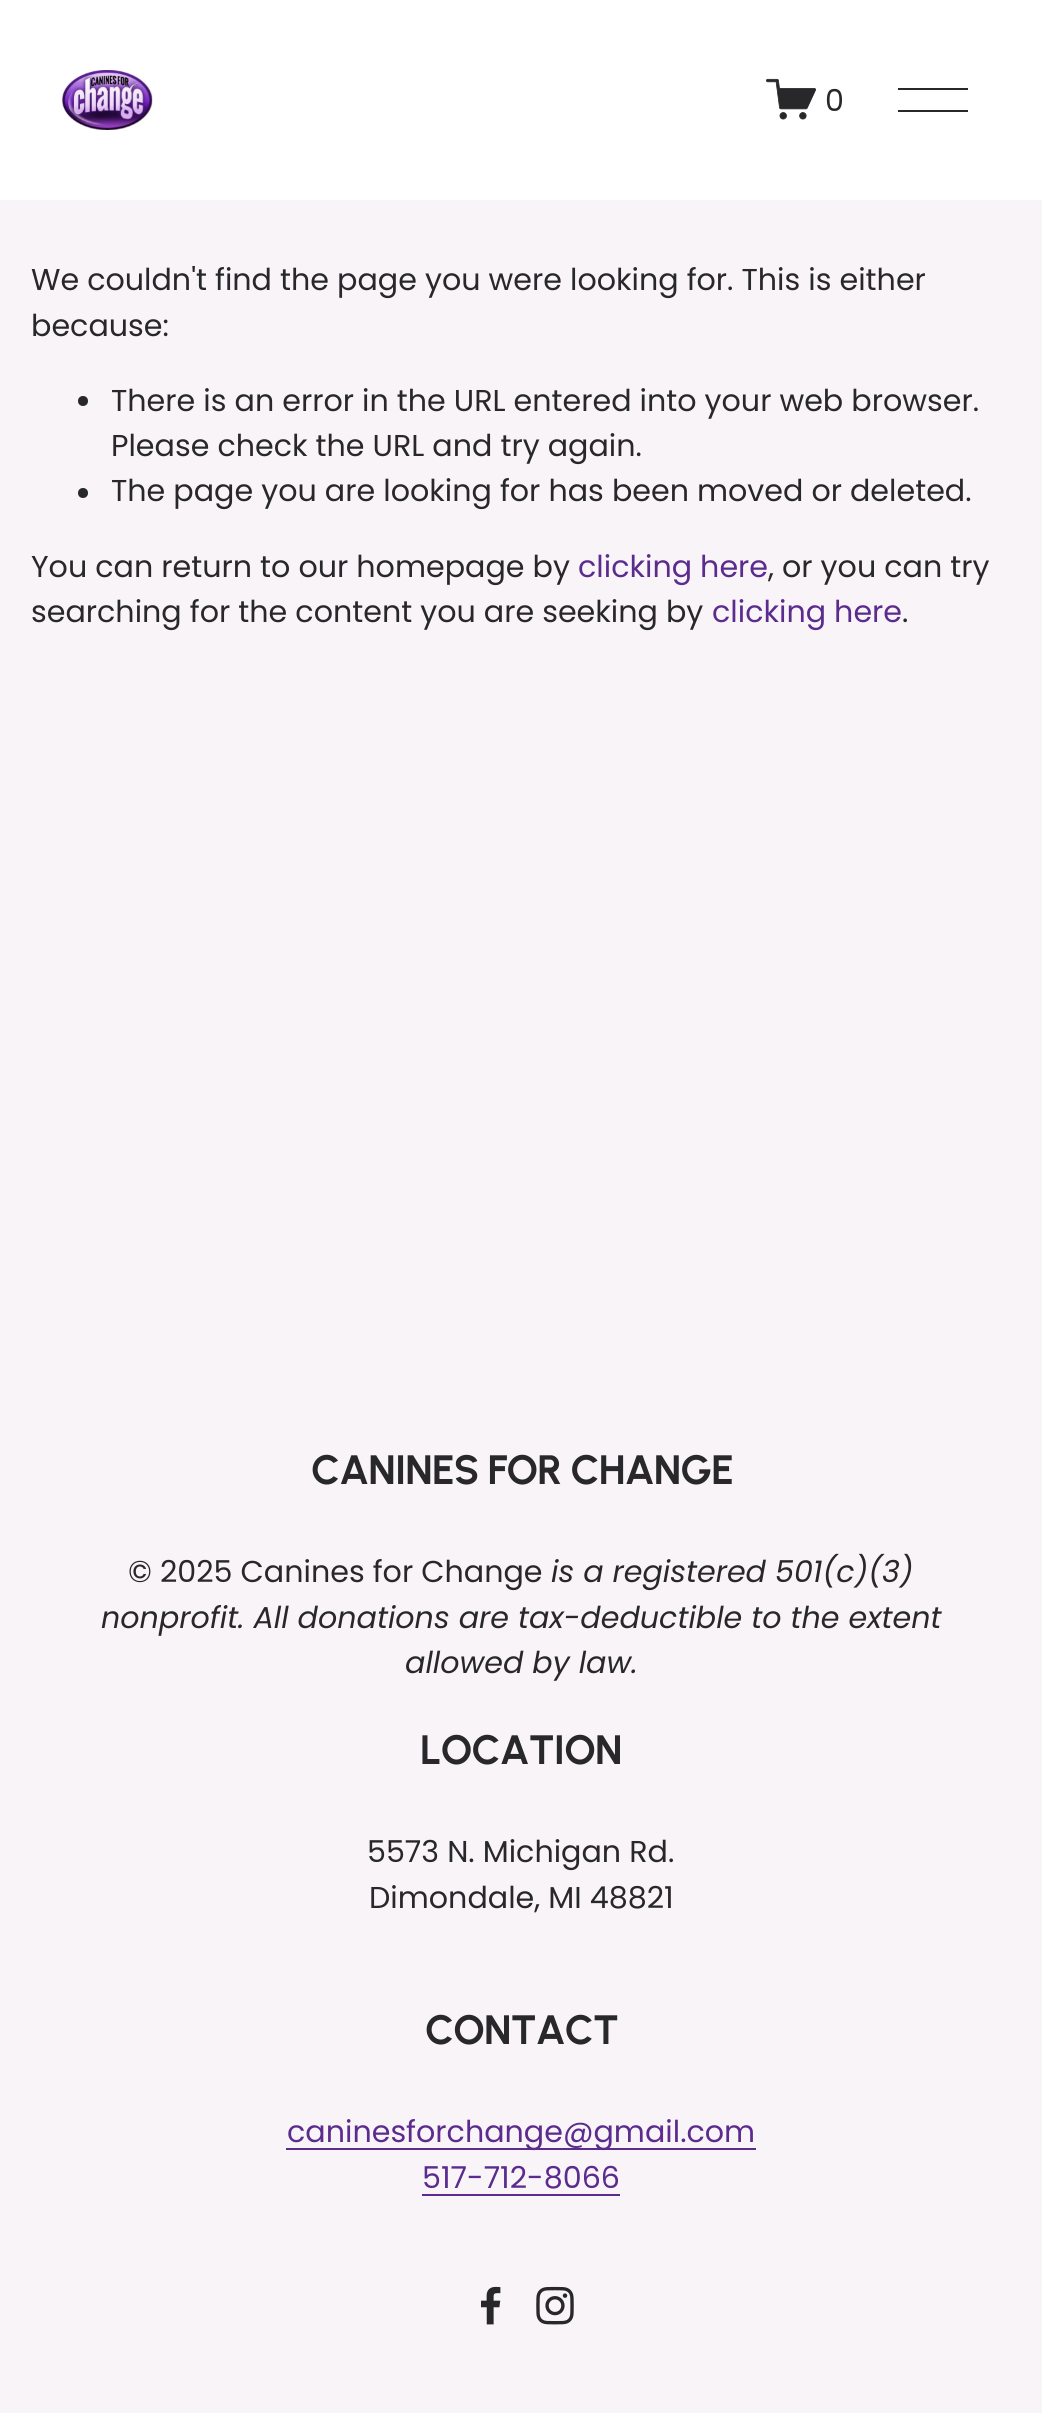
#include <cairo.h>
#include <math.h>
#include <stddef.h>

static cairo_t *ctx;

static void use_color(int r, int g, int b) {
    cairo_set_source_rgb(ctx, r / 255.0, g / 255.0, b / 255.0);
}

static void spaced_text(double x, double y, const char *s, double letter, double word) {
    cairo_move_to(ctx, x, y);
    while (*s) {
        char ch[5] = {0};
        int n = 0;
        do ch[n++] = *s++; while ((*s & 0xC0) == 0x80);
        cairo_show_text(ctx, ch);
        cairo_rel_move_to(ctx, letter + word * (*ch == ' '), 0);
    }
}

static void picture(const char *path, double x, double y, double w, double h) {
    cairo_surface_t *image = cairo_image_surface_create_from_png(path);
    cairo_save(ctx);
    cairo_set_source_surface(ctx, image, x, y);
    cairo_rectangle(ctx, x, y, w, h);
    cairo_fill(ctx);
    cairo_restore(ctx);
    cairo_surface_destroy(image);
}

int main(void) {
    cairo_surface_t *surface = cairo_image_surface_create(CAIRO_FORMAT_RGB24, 1042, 2413);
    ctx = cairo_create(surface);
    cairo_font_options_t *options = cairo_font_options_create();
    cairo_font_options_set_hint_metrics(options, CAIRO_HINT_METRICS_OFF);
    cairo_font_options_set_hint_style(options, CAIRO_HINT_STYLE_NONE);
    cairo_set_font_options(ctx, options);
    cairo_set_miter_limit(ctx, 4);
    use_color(248, 244, 248);
    cairo_paint(ctx);
    use_color(255, 255, 255);
    cairo_rectangle(ctx, 0, 0, 1042, 200);
    cairo_fill(ctx);
    picture("img1.png", 62, 70, 91, 60);
    picture("img2.png", 766, 78, 50, 42);
    cairo_select_font_face(ctx, "Poppins", CAIRO_FONT_SLANT_NORMAL, CAIRO_FONT_WEIGHT_NORMAL);
    cairo_set_font_size(ctx, 30.15);
    use_color(40, 40, 43);
    cairo_move_to(ctx, 825, 111);
    cairo_show_text(ctx, "0");
    cairo_rectangle(ctx, 898, 88, 70, 2);
    cairo_fill(ctx);
    cairo_rectangle(ctx, 898, 110, 70, 2);
    cairo_fill(ctx);
    cairo_move_to(ctx, 31, 290);
    cairo_show_text(ctx, "We couldn't find the page you were looking for. This is either");
    cairo_move_to(ctx, 31, 336);
    cairo_show_text(ctx, "because:");
    cairo_new_path(ctx);
    cairo_arc(ctx, 83, 401, 5, 0, 2 * M_PI);
    cairo_fill(ctx);
    cairo_move_to(ctx, 111, 411);
    cairo_show_text(ctx, "There is an error in the URL entered into your web browser.");
    cairo_move_to(ctx, 111, 456);
    cairo_show_text(ctx, "Please check the URL and try again.");
    cairo_new_path(ctx);
    cairo_arc(ctx, 83, 493, 5, 0, 2 * M_PI);
    cairo_fill(ctx);
    cairo_move_to(ctx, 111, 501);
    cairo_show_text(ctx, "The page you are looking for has been moved or deleted.");
    cairo_move_to(ctx, 31, 577);
    cairo_show_text(ctx, "You can return to our homepage by");
    use_color(91, 43, 142);
    cairo_move_to(ctx, 578, 577);
    cairo_show_text(ctx, "clicking here");
    use_color(40, 40, 43);
    cairo_move_to(ctx, 768, 577);
    cairo_show_text(ctx, ", or you can try");
    cairo_move_to(ctx, 31, 622);
    cairo_show_text(ctx, "searching for the content you are seeking by");
    use_color(91, 43, 142);
    cairo_move_to(ctx, 712, 622);
    cairo_show_text(ctx, "clicking here");
    use_color(40, 40, 43);
    cairo_move_to(ctx, 902, 622);
    cairo_show_text(ctx, ".");
    cairo_select_font_face(ctx, "Urbanist", CAIRO_FONT_SLANT_NORMAL, CAIRO_FONT_WEIGHT_BOLD);
    cairo_set_font_size(ctx, 41);
    spaced_text(311, 1484, "CANINES FOR CHANGE", -0.8, 0);
    cairo_select_font_face(ctx, "Poppins", CAIRO_FONT_SLANT_NORMAL, CAIRO_FONT_WEIGHT_NORMAL);
    cairo_set_font_size(ctx, 30.15);
    cairo_move_to(ctx, 128, 1582);
    cairo_show_text(ctx, "© 2025 Canines for Change");
    cairo_select_font_face(ctx, "Poppins", CAIRO_FONT_SLANT_ITALIC, CAIRO_FONT_WEIGHT_NORMAL);
    cairo_move_to(ctx, 551, 1582);
    cairo_show_text(ctx, "is a registered 501(c)(3)");
    cairo_move_to(ctx, 101, 1628);
    cairo_show_text(ctx, "nonprofit. All donations are tax-deductible to the extent");
    cairo_move_to(ctx, 405, 1673);
    cairo_show_text(ctx, "allowed by law.");
    cairo_select_font_face(ctx, "Urbanist", CAIRO_FONT_SLANT_NORMAL, CAIRO_FONT_WEIGHT_BOLD);
    cairo_set_font_size(ctx, 41);
    spaced_text(420, 1764, "LOCATION", -0.8, 0);
    cairo_select_font_face(ctx, "Poppins", CAIRO_FONT_SLANT_NORMAL, CAIRO_FONT_WEIGHT_NORMAL);
    cairo_set_font_size(ctx, 30.15);
    cairo_move_to(ctx, 367, 1862);
    cairo_show_text(ctx, "5573 N. Michigan Rd.");
    cairo_move_to(ctx, 369, 1908);
    cairo_show_text(ctx, "Dimondale, MI 48821");
    cairo_select_font_face(ctx, "Urbanist", CAIRO_FONT_SLANT_NORMAL, CAIRO_FONT_WEIGHT_BOLD);
    cairo_set_font_size(ctx, 41);
    spaced_text(425, 2044, "CONTACT", -0.8, 0);
    use_color(91, 43, 142);
    cairo_rectangle(ctx, 286, 2148, 470, 2);
    cairo_fill(ctx);
    cairo_select_font_face(ctx, "Poppins", CAIRO_FONT_SLANT_NORMAL, CAIRO_FONT_WEIGHT_NORMAL);
    cairo_set_font_size(ctx, 30.15);
    cairo_move_to(ctx, 287, 2142);
    cairo_show_text(ctx, "caninesforchange@gmail.com");
    cairo_move_to(ctx, 422, 2188);
    cairo_show_text(ctx, "517-712-8066");
    cairo_rectangle(ctx, 422, 2194, 198, 2);
    cairo_fill(ctx);
    picture("img3.png", 481, 2286, 20, 39);
    picture("img4.png", 536, 2286, 38, 39);
    cairo_surface_write_to_png(surface, "result.png");
    cairo_font_options_destroy(options);
    cairo_destroy(ctx);
    cairo_surface_destroy(surface);
    return 0;
}
